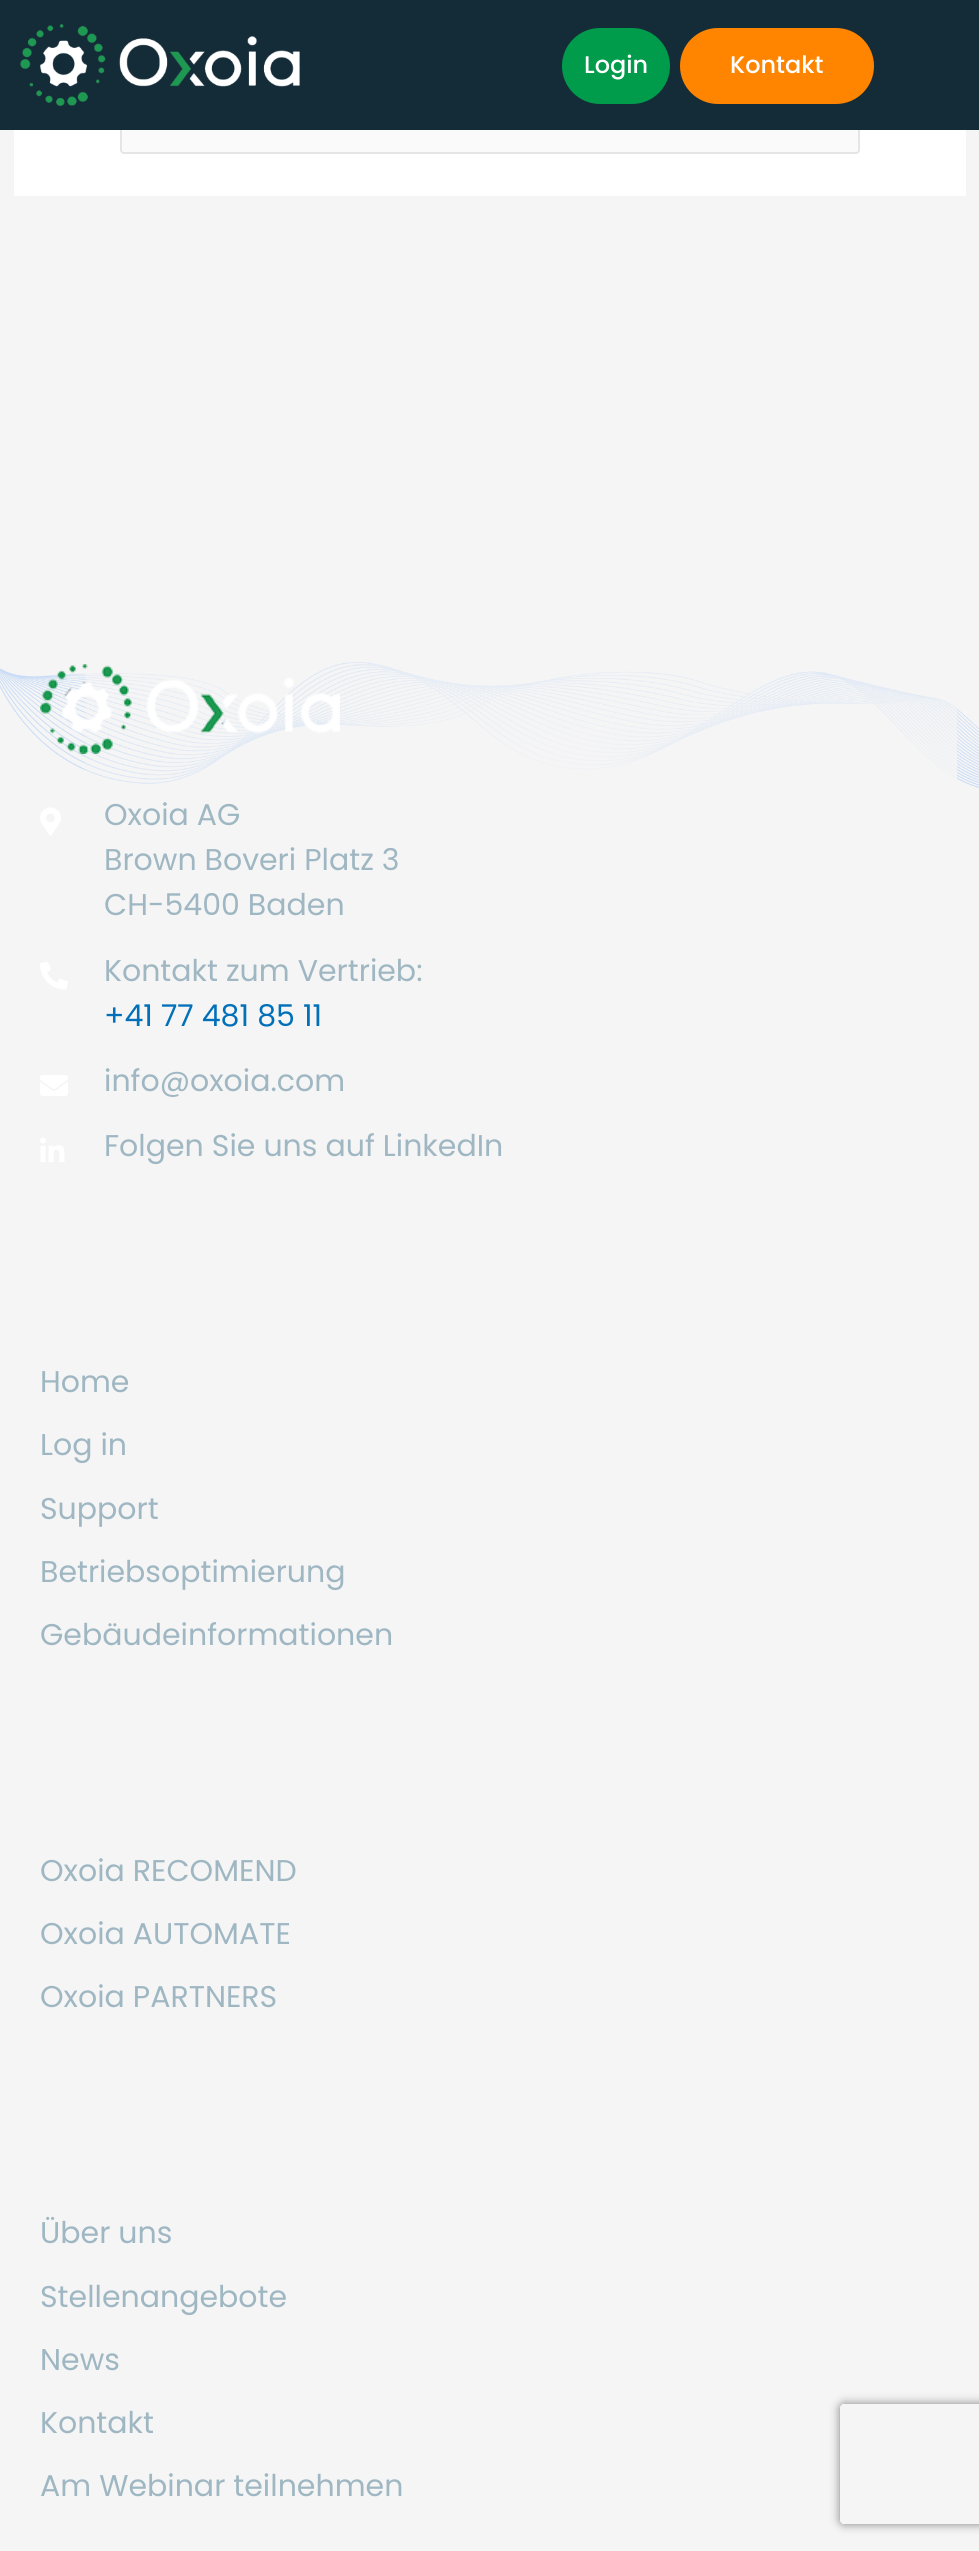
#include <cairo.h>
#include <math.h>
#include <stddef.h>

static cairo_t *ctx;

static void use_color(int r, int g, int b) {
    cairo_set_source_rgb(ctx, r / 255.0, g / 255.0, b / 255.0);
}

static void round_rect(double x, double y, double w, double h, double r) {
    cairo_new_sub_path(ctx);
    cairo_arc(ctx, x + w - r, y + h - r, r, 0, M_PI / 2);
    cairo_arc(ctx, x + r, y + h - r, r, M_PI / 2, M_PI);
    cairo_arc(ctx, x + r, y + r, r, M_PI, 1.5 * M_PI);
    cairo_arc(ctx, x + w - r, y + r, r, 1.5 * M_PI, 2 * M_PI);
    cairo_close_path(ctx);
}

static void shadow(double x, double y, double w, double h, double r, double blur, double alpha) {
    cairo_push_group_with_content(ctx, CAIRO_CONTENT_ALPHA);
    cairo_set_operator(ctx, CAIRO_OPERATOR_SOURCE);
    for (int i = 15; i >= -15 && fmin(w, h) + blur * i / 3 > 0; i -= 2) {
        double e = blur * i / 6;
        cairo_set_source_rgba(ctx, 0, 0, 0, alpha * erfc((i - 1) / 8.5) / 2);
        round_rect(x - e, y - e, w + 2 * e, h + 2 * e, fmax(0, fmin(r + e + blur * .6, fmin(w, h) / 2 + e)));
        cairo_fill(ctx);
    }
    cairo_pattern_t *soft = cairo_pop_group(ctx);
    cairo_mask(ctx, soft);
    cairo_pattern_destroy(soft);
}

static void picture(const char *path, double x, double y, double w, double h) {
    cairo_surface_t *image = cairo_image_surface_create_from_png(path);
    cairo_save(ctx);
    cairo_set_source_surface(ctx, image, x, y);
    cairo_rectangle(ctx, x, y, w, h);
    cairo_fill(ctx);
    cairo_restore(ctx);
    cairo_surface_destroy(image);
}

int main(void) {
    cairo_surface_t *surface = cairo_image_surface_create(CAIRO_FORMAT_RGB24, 979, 2551);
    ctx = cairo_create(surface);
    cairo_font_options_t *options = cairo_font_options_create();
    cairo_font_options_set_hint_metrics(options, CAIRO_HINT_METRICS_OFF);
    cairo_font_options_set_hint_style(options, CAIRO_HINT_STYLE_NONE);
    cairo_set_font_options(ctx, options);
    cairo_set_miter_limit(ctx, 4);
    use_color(245, 245, 245);
    cairo_paint(ctx);
    use_color(255, 255, 255);
    cairo_rectangle(ctx, 14, 130, 952, 66);
    cairo_fill(ctx);
    use_color(250, 250, 250);
    round_rect(121, 57, 738, 96, 3);
    cairo_fill_preserve(ctx);
    use_color(229, 229, 229);
    cairo_stroke(ctx);
    use_color(20, 44, 56);
    cairo_rectangle(ctx, 0, 0, 979, 130);
    cairo_fill(ctx);
    picture("img1.png", 20, 24, 280, 82);
    use_color(0, 156, 75);
    round_rect(563, 29, 106, 74, 37);
    cairo_fill_preserve(ctx);
    cairo_stroke(ctx);
    cairo_select_font_face(ctx, "Poppins Medium", CAIRO_FONT_SLANT_NORMAL, CAIRO_FONT_WEIGHT_NORMAL);
    cairo_set_font_size(ctx, 24);
    use_color(255, 255, 255);
    cairo_move_to(ctx, 584, 73);
    cairo_show_text(ctx, "Login");
    use_color(255, 133, 0);
    round_rect(681, 29, 192, 74, 37);
    cairo_fill_preserve(ctx);
    cairo_stroke(ctx);
    use_color(255, 255, 255);
    cairo_move_to(ctx, 730, 73);
    cairo_show_text(ctx, "Kontakt");
    picture("img2.png", 0, 662, 979, 126);
    picture("img3.png", 40, 664, 300, 90);
    picture("img4.png", 40, 807, 21, 29);
    cairo_select_font_face(ctx, "Poppins", CAIRO_FONT_SLANT_NORMAL, CAIRO_FONT_WEIGHT_NORMAL);
    cairo_set_font_size(ctx, 30);
    use_color(159, 183, 194);
    cairo_move_to(ctx, 104, 825);
    cairo_show_text(ctx, "Oxoia AG");
    cairo_move_to(ctx, 104, 870);
    cairo_show_text(ctx, "Brown Boveri Platz 3");
    cairo_move_to(ctx, 104, 915);
    cairo_show_text(ctx, "CH-5400 Baden");
    picture("img5.png", 40, 962, 28, 28);
    cairo_move_to(ctx, 104, 981);
    cairo_show_text(ctx, "Kontakt zum Vertrieb:");
    use_color(1, 112, 185);
    cairo_move_to(ctx, 104, 1026);
    cairo_show_text(ctx, "+41 77 481 85 11");
    picture("img6.png", 40, 1075, 28, 21);
    use_color(159, 183, 194);
    cairo_move_to(ctx, 104, 1091);
    cairo_show_text(ctx, "info@oxoia.com");
    picture("img7.png", 40, 1137, 25, 25);
    cairo_move_to(ctx, 104, 1156);
    cairo_show_text(ctx, "Folgen Sie uns auf LinkedIn");
    cairo_move_to(ctx, 40, 1392);
    cairo_show_text(ctx, "Home");
    cairo_move_to(ctx, 40, 1455);
    cairo_show_text(ctx, "Log in");
    cairo_move_to(ctx, 40, 1519);
    cairo_show_text(ctx, "Support");
    cairo_move_to(ctx, 40, 1582);
    cairo_show_text(ctx, "Betriebsoptimierung");
    cairo_move_to(ctx, 40, 1645);
    cairo_show_text(ctx, "Gebäudeinformationen");
    cairo_move_to(ctx, 40, 1881);
    cairo_show_text(ctx, "Oxoia RECOMEND");
    cairo_move_to(ctx, 40, 1944);
    cairo_show_text(ctx, "Oxoia AUTOMATE");
    cairo_move_to(ctx, 40, 2007);
    cairo_show_text(ctx, "Oxoia PARTNERS");
    cairo_move_to(ctx, 40, 2243);
    cairo_show_text(ctx, "Über uns");
    cairo_move_to(ctx, 40, 2307);
    cairo_show_text(ctx, "Stellenangebote");
    cairo_move_to(ctx, 40, 2370);
    cairo_show_text(ctx, "News");
    cairo_move_to(ctx, 40, 2433);
    cairo_show_text(ctx, "Kontakt");
    cairo_move_to(ctx, 40, 2496);
    cairo_show_text(ctx, "Am Webinar teilnehmen");
    cairo_save(ctx);
    cairo_set_fill_rule(ctx, CAIRO_FILL_RULE_EVEN_ODD);
    cairo_new_path(ctx);
    cairo_move_to(ctx, 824, 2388);
    cairo_line_to(ctx, 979, 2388);
    cairo_line_to(ctx, 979, 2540);
    cairo_line_to(ctx, 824, 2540);
    cairo_close_path(ctx);
    cairo_move_to(ctx, 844, 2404);
    cairo_line_to(ctx, 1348, 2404);
    cairo_curve_to(ctx, 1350, 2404, 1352, 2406, 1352, 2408);
    cairo_line_to(ctx, 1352, 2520);
    cairo_curve_to(ctx, 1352, 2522, 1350, 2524, 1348, 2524);
    cairo_line_to(ctx, 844, 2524);
    cairo_curve_to(ctx, 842, 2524, 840, 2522, 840, 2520);
    cairo_line_to(ctx, 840, 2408);
    cairo_curve_to(ctx, 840, 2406, 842, 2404, 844, 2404);
    cairo_close_path(ctx);
    cairo_clip(ctx);
    use_color(128, 128, 128);
    shadow(840, 2404, 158, 120, 4, 5, 1);
    cairo_restore(ctx);
    cairo_surface_write_to_png(surface, "result.png");
    cairo_font_options_destroy(options);
    cairo_destroy(ctx);
    cairo_surface_destroy(surface);
    return 0;
}
